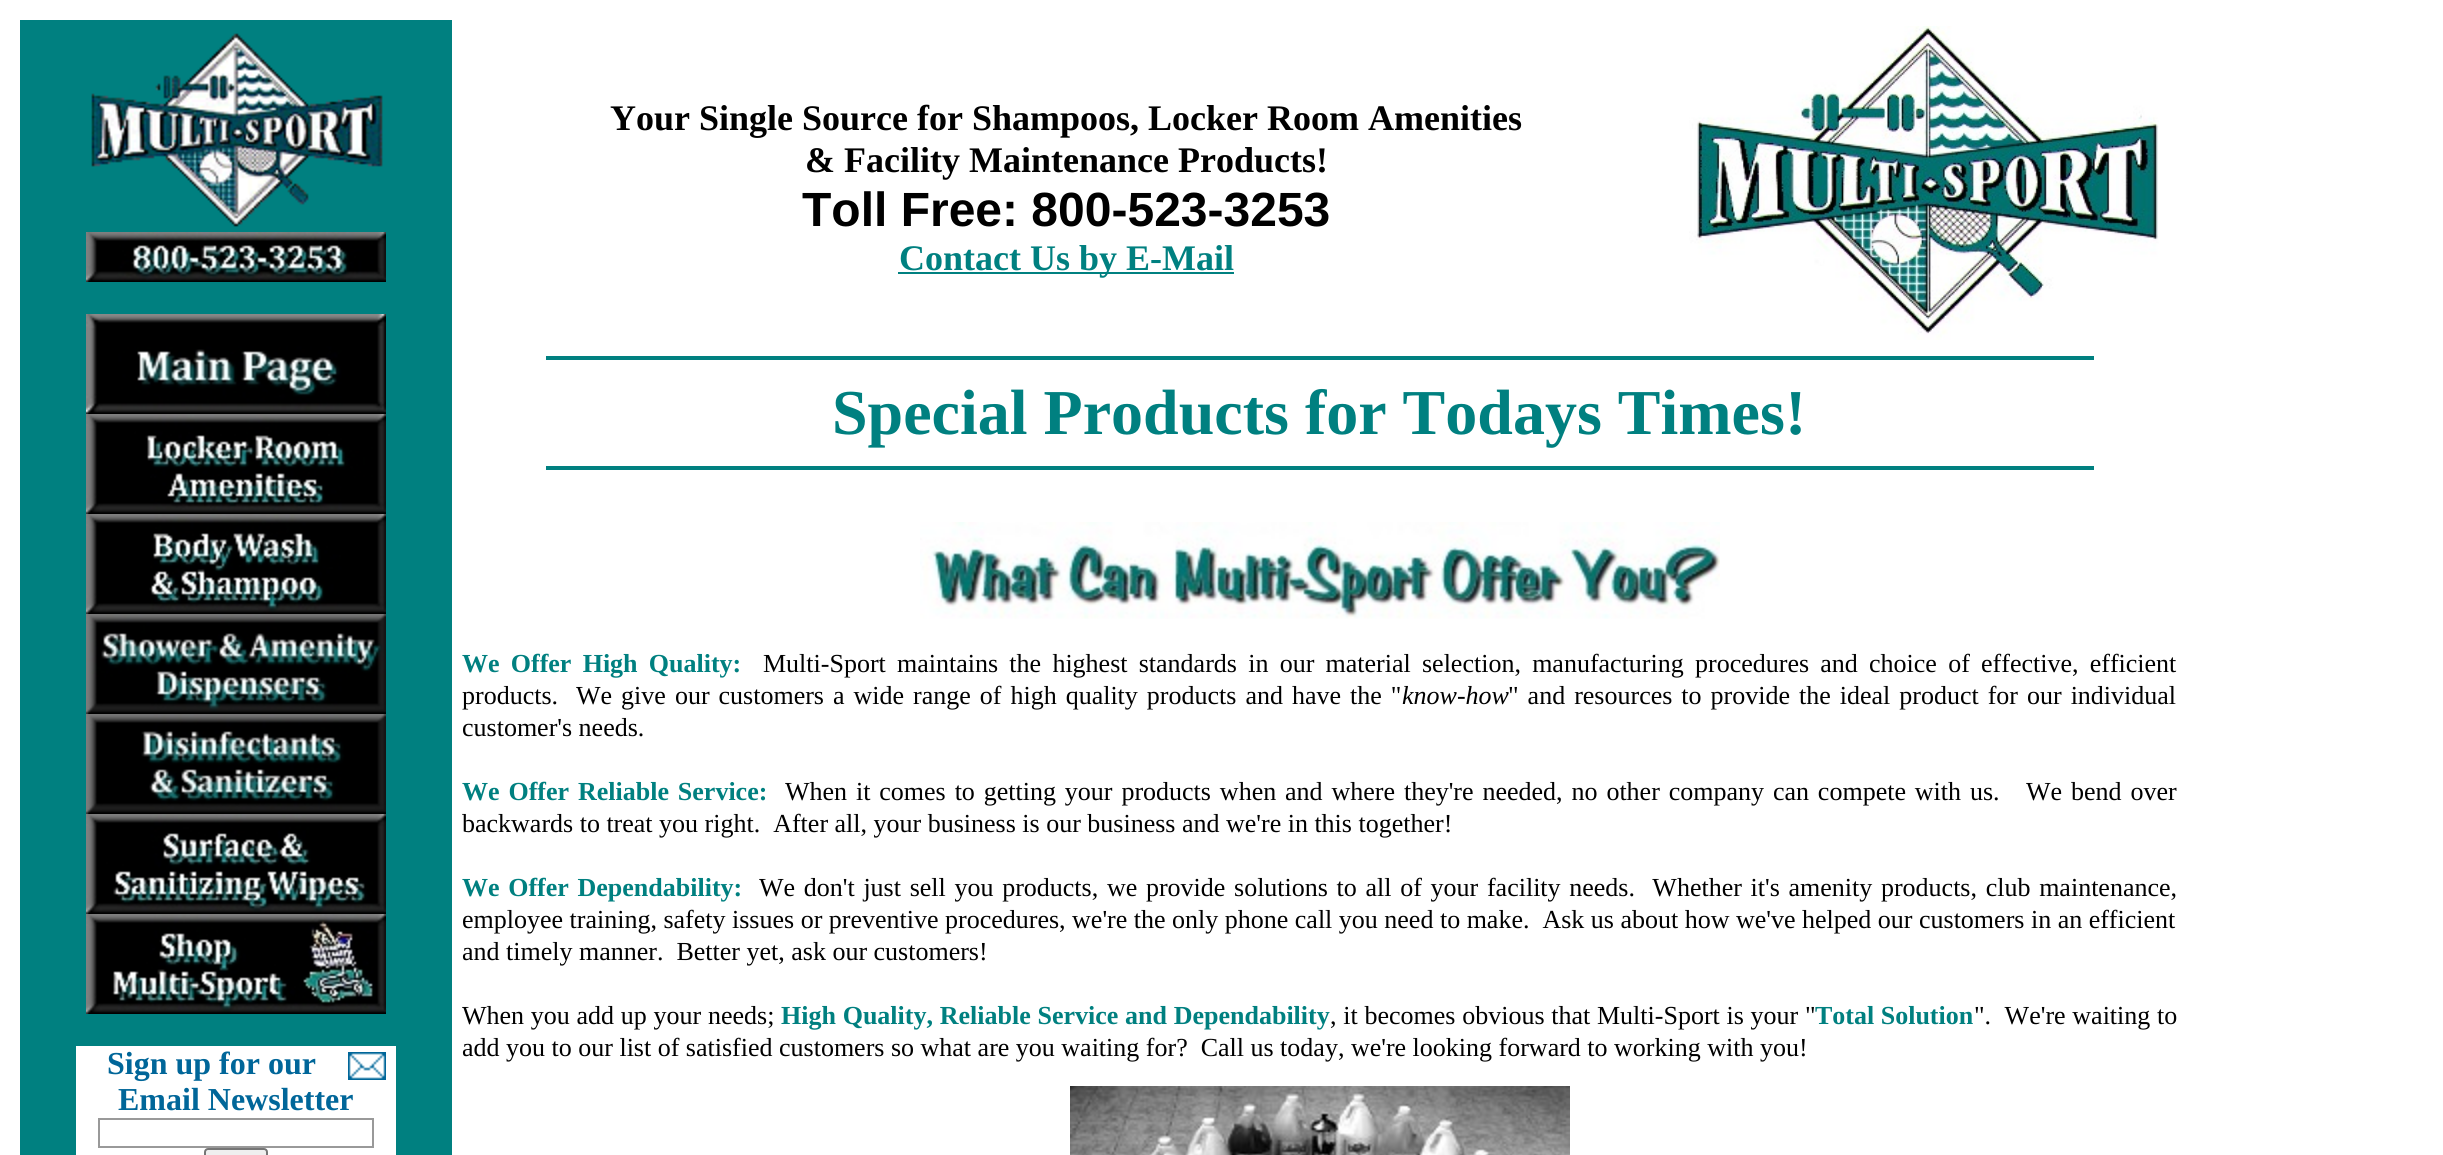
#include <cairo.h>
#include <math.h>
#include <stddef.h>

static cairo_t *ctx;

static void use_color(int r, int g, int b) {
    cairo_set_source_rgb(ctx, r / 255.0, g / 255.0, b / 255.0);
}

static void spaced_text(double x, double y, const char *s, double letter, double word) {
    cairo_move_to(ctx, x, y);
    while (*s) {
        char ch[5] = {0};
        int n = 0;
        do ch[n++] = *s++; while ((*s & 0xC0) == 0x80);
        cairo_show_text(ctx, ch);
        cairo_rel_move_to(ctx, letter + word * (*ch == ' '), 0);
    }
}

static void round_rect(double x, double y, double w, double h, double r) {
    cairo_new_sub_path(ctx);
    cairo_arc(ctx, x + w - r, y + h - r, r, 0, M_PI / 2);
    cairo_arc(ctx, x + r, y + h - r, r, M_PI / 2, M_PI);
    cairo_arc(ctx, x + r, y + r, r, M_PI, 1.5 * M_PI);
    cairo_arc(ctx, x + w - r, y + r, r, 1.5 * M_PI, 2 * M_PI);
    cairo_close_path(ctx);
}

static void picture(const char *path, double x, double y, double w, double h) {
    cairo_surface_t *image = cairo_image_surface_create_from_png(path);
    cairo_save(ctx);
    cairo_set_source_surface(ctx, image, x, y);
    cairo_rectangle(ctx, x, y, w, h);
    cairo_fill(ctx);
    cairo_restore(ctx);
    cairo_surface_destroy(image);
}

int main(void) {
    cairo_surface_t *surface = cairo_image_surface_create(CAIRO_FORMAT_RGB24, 2443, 1155);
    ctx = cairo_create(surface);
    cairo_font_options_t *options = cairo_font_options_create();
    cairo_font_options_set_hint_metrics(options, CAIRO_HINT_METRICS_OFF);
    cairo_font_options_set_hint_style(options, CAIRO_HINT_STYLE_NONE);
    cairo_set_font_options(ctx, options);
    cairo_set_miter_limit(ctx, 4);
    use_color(255, 255, 255);
    cairo_paint(ctx);
    cairo_select_font_face(ctx, "Liberation Serif", CAIRO_FONT_SLANT_NORMAL, CAIRO_FONT_WEIGHT_BOLD);
    cairo_set_font_size(ctx, 36);
    use_color(0, 0, 0);
    cairo_move_to(ctx, 610, 130);
    cairo_show_text(ctx, "Your Single Source for Shampoos, Locker Room Amenities");
    picture("img1.png", 1689, 26, 470, 314);
    cairo_move_to(ctx, 805, 172);
    cairo_show_text(ctx, "& Facility Maintenance Products!");
    cairo_select_font_face(ctx, "Liberation Sans", CAIRO_FONT_SLANT_NORMAL, CAIRO_FONT_WEIGHT_BOLD);
    cairo_set_font_size(ctx, 48);
    cairo_move_to(ctx, 802, 226);
    cairo_show_text(ctx, "Toll Free: 800-523-3253");
    use_color(0, 128, 128);
    cairo_rectangle(ctx, 898, 272, 336, 2);
    cairo_fill(ctx);
    cairo_select_font_face(ctx, "Liberation Serif", CAIRO_FONT_SLANT_NORMAL, CAIRO_FONT_WEIGHT_BOLD);
    cairo_set_font_size(ctx, 36);
    cairo_move_to(ctx, 899, 270);
    cairo_show_text(ctx, "Contact Us by E-Mail");
    cairo_rectangle(ctx, 546, 356, 1548, 4);
    cairo_fill(ctx);
    cairo_set_font_size(ctx, 64);
    cairo_move_to(ctx, 832, 434);
    cairo_show_text(ctx, "Special Products for Todays Times!");
    cairo_rectangle(ctx, 546, 466, 1548, 4);
    cairo_fill(ctx);
    picture("img2.png", 920, 522, 800, 97);
    cairo_set_font_size(ctx, 26);
    spaced_text(462, 672, "We Offer High Quality:", 0, 4.75);
    cairo_select_font_face(ctx, "Liberation Serif", CAIRO_FONT_SLANT_NORMAL, CAIRO_FONT_WEIGHT_NORMAL);
    use_color(0, 0, 0);
    spaced_text(763, 672, "Multi-Sport maintains the highest standards in our material selection, manufacturing procedures and choice of effective, efficient", 0, 4.75);
    spaced_text(462, 704, "products.  We give our customers a wide range of high quality products and have the \"", 0, 2.5);
    cairo_select_font_face(ctx, "Liberation Serif", CAIRO_FONT_SLANT_ITALIC, CAIRO_FONT_WEIGHT_NORMAL);
    cairo_move_to(ctx, 1402, 704);
    cairo_show_text(ctx, "know-how");
    cairo_select_font_face(ctx, "Liberation Serif", CAIRO_FONT_SLANT_NORMAL, CAIRO_FONT_WEIGHT_NORMAL);
    spaced_text(1508, 704, "\" and resources to provide the ideal product for our individual", 0, 2.5);
    cairo_move_to(ctx, 462, 736);
    cairo_show_text(ctx, "customer's needs.");
    cairo_select_font_face(ctx, "Liberation Serif", CAIRO_FONT_SLANT_NORMAL, CAIRO_FONT_WEIGHT_BOLD);
    use_color(0, 128, 128);
    spaced_text(462, 800, "We Offer Reliable Service:", 0, 2.4);
    cairo_select_font_face(ctx, "Liberation Serif", CAIRO_FONT_SLANT_NORMAL, CAIRO_FONT_WEIGHT_NORMAL);
    use_color(0, 0, 0);
    spaced_text(785, 800, "When it comes to getting your products when and where they're needed, no other company can compete with us.", 0, 2.4);
    spaced_text(2026, 800, "We bend over", 0, 2.4);
    cairo_move_to(ctx, 462, 832);
    cairo_show_text(ctx, "backwards to treat you right.  After all, your business is our business and we're in this together!");
    cairo_select_font_face(ctx, "Liberation Serif", CAIRO_FONT_SLANT_NORMAL, CAIRO_FONT_WEIGHT_BOLD);
    use_color(0, 128, 128);
    spaced_text(462, 896, "We Offer Dependability:", 0, 2.2);
    cairo_select_font_face(ctx, "Liberation Serif", CAIRO_FONT_SLANT_NORMAL, CAIRO_FONT_WEIGHT_NORMAL);
    use_color(0, 0, 0);
    spaced_text(759, 896, "We don't just sell you products, we provide solutions to all of your facility needs.  Whether it's amenity products, club maintenance,", 0, 2.2);
    cairo_move_to(ctx, 462, 928);
    cairo_show_text(ctx, "employee training, safety issues or preventive procedures, we're the only phone call you need to make.  Ask us about how we've helped our customers in an efficient");
    cairo_move_to(ctx, 462, 960);
    cairo_show_text(ctx, "and timely manner.  Better yet, ask our customers!");
    spaced_text(462, 1024, "When you add up your needs;", 0, 0.25);
    cairo_select_font_face(ctx, "Liberation Serif", CAIRO_FONT_SLANT_NORMAL, CAIRO_FONT_WEIGHT_BOLD);
    use_color(0, 128, 128);
    spaced_text(781, 1024, "High Quality, Reliable Service and Dependability", 0, 0.25);
    cairo_select_font_face(ctx, "Liberation Serif", CAIRO_FONT_SLANT_NORMAL, CAIRO_FONT_WEIGHT_NORMAL);
    use_color(0, 0, 0);
    spaced_text(1330, 1024, ", it becomes obvious that Multi-Sport is your \"", 0, 0.25);
    cairo_select_font_face(ctx, "Liberation Serif", CAIRO_FONT_SLANT_NORMAL, CAIRO_FONT_WEIGHT_BOLD);
    use_color(0, 128, 128);
    cairo_move_to(ctx, 1815, 1024);
    cairo_show_text(ctx, "Total Solution");
    cairo_select_font_face(ctx, "Liberation Serif", CAIRO_FONT_SLANT_NORMAL, CAIRO_FONT_WEIGHT_NORMAL);
    use_color(0, 0, 0);
    spaced_text(1974, 1024, "\".  We're waiting to", 0, 0.25);
    cairo_move_to(ctx, 462, 1056);
    cairo_show_text(ctx, "add you to our list of satisfied customers so what are you waiting for?  Call us today, we're looking forward to working with you!");
    picture("img3.png", 1070, 1086, 500, 69);
    use_color(0, 128, 128);
    cairo_rectangle(ctx, 20, 20, 432, 1135);
    cairo_fill(ctx);
    picture("img4.png", 91, 33, 292, 194);
    picture("img5.png", 86, 232, 300, 50);
    picture("img6.png", 86, 314, 300, 100);
    picture("img7.png", 86, 414, 300, 100);
    picture("img8.png", 86, 514, 300, 100);
    picture("img9.png", 86, 614, 300, 100);
    picture("img10.png", 86, 714, 300, 100);
    picture("img11.png", 86, 814, 300, 100);
    picture("img12.png", 86, 914, 300, 100);
    use_color(255, 255, 255);
    cairo_rectangle(ctx, 76, 1046, 320, 109);
    cairo_fill(ctx);
    cairo_select_font_face(ctx, "Liberation Serif", CAIRO_FONT_SLANT_NORMAL, CAIRO_FONT_WEIGHT_BOLD);
    cairo_set_font_size(ctx, 32);
    use_color(0, 102, 153);
    cairo_move_to(ctx, 107, 1074);
    cairo_show_text(ctx, "Sign up for our");
    cairo_rectangle(ctx, 348, 1052, 38, 28);
    cairo_fill(ctx);
    picture("img13.png", 349, 1053, 36, 26);
    cairo_move_to(ctx, 118, 1110);
    cairo_show_text(ctx, "Email Newsletter");
    cairo_rectangle(ctx, 99, 1119, 274, 28);
    use_color(153, 153, 153);
    cairo_stroke(ctx);
    use_color(239, 239, 239);
    round_rect(205, 1149, 62, 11, 3);
    cairo_fill_preserve(ctx);
    use_color(118, 118, 118);
    cairo_stroke(ctx);
    cairo_surface_write_to_png(surface, "result.png");
    cairo_font_options_destroy(options);
    cairo_destroy(ctx);
    cairo_surface_destroy(surface);
    return 0;
}
